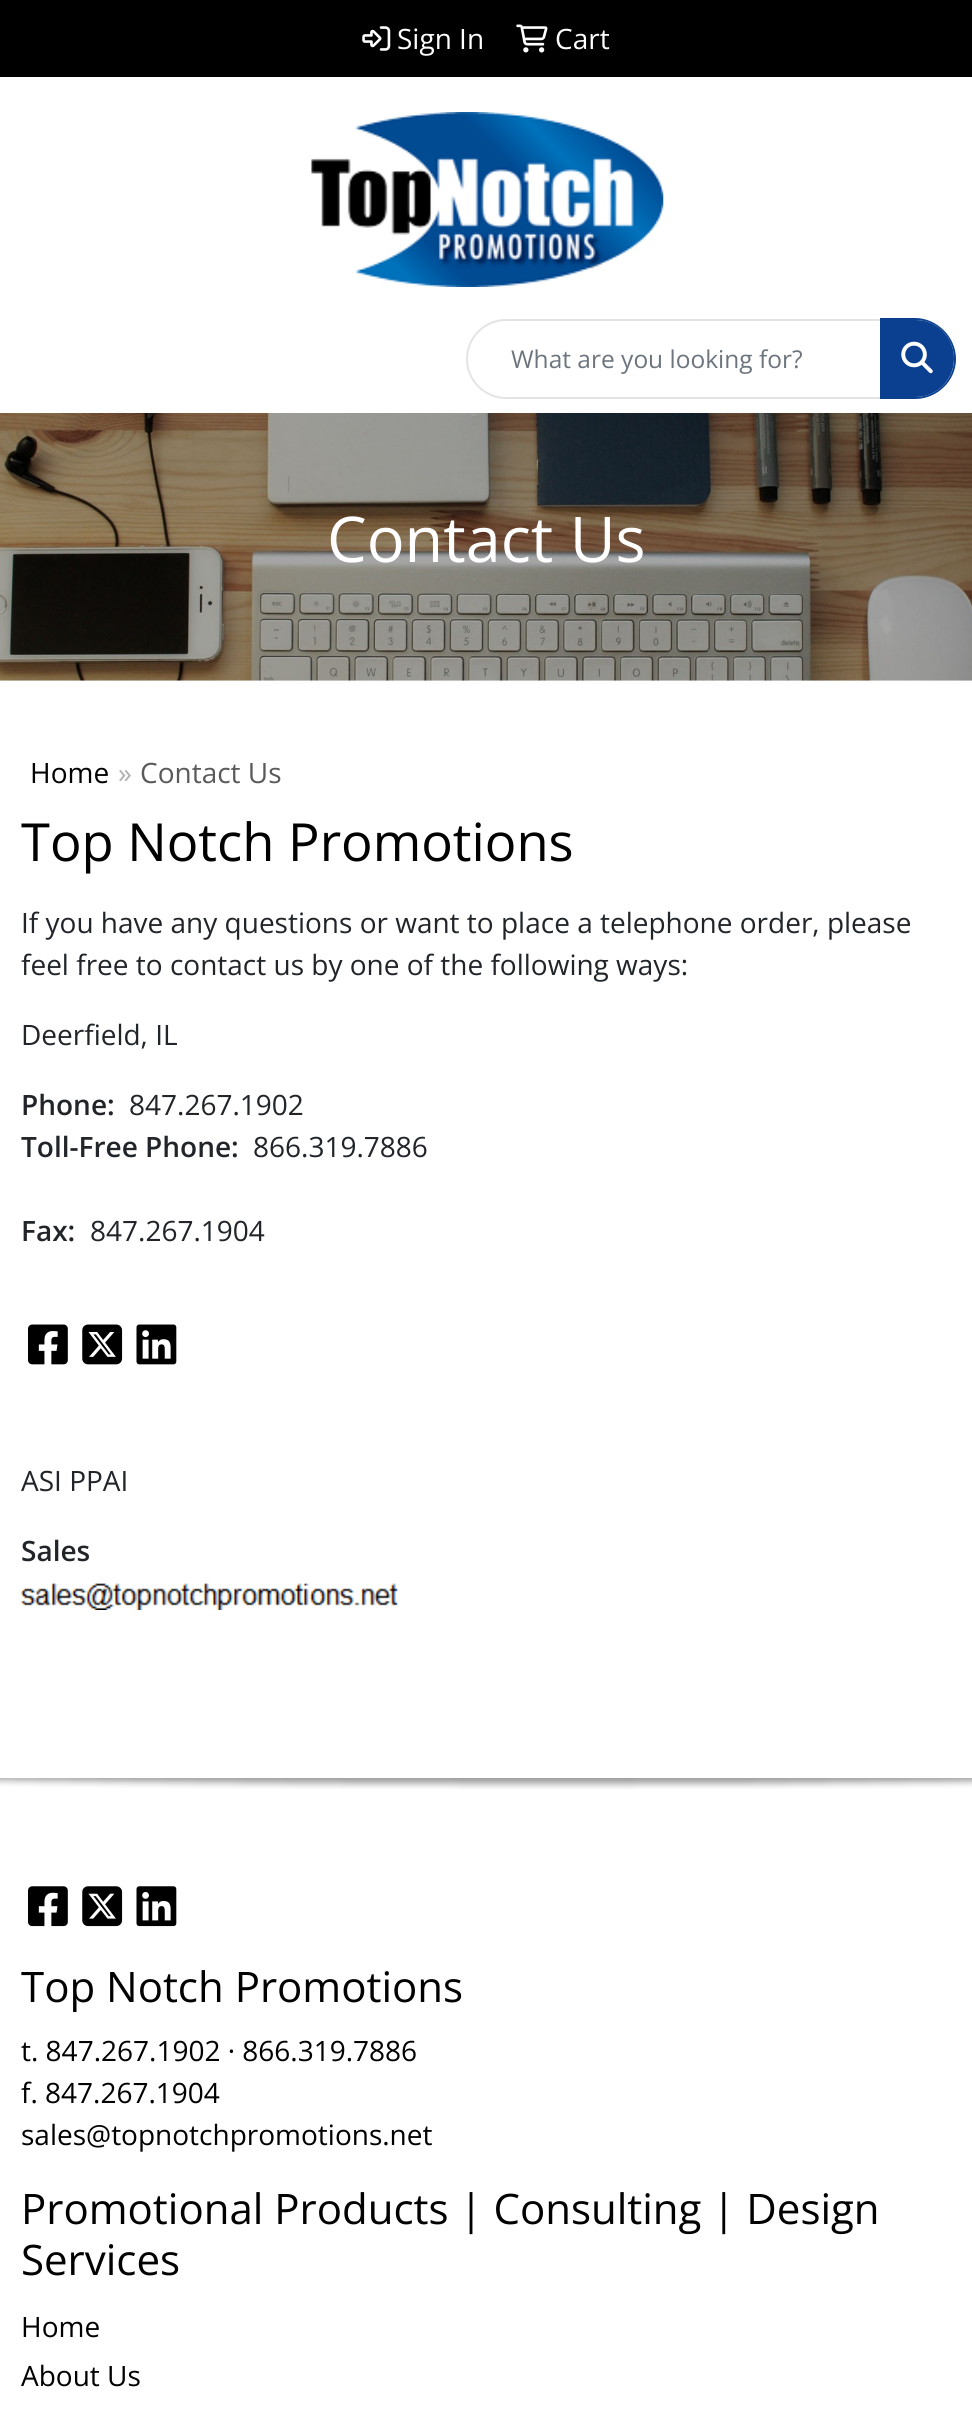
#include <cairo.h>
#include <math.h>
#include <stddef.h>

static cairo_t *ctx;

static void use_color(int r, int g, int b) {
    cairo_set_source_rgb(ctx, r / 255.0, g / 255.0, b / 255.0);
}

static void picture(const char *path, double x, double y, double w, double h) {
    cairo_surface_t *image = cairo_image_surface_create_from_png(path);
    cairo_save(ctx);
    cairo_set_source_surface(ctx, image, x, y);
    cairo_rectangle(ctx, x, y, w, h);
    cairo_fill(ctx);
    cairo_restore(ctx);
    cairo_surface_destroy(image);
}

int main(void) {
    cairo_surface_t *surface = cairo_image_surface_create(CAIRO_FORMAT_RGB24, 972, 2418);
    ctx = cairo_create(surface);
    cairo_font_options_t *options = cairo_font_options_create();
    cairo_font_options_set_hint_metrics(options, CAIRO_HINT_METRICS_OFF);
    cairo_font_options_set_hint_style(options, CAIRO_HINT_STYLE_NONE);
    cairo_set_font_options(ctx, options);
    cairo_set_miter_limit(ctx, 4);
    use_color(255, 255, 255);
    cairo_paint(ctx);
    use_color(0, 0, 0);
    cairo_rectangle(ctx, 0, 0, 972, 77);
    cairo_fill(ctx);
    picture("img1.png", 362, 26, 29, 25);
    cairo_select_font_face(ctx, "Open Sans", CAIRO_FONT_SLANT_NORMAL, CAIRO_FONT_WEIGHT_NORMAL);
    cairo_set_font_size(ctx, 28);
    use_color(255, 255, 255);
    cairo_move_to(ctx, 397, 49);
    cairo_show_text(ctx, "Sign In");
    picture("img2.png", 516, 24, 32, 29);
    cairo_move_to(ctx, 555, 49);
    cairo_show_text(ctx, "Cart");
    picture("img3.png", 311, 112, 353, 175);
    cairo_new_path(ctx);
    cairo_move_to(ctx, 506, 320);
    cairo_line_to(ctx, 881, 320);
    cairo_line_to(ctx, 881, 398);
    cairo_line_to(ctx, 506, 398);
    cairo_curve_to(ctx, 484.5, 398, 467, 380.5, 467, 359);
    cairo_curve_to(ctx, 467, 337.5, 484.5, 320, 506, 320);
    cairo_close_path(ctx);
    use_color(228, 228, 228);
    cairo_stroke(ctx);
    cairo_set_font_size(ctx, 24.5);
    use_color(108, 117, 125);
    cairo_move_to(ctx, 511, 368);
    cairo_show_text(ctx, "What are you looking for?");
    use_color(11, 64, 144);
    cairo_new_path(ctx);
    cairo_move_to(ctx, 880, 320);
    cairo_line_to(ctx, 915.5, 320);
    cairo_curve_to(ctx, 937, 320, 954, 337, 954, 358.5);
    cairo_curve_to(ctx, 954, 380, 937, 397, 915.5, 397);
    cairo_line_to(ctx, 880, 397);
    cairo_close_path(ctx);
    cairo_fill(ctx);
    cairo_set_fill_rule(ctx, CAIRO_FILL_RULE_EVEN_ODD);
    cairo_new_path(ctx);
    cairo_move_to(ctx, 880, 318);
    cairo_line_to(ctx, 915, 318);
    cairo_curve_to(ctx, 937, 318, 956, 337, 956, 359);
    cairo_curve_to(ctx, 956, 381, 937, 399, 915, 399);
    cairo_line_to(ctx, 880, 399);
    cairo_close_path(ctx);
    cairo_move_to(ctx, 880, 320);
    cairo_line_to(ctx, 915, 320);
    cairo_curve_to(ctx, 937, 320, 954, 337, 954, 359);
    cairo_curve_to(ctx, 954, 380, 937, 397, 915, 397);
    cairo_line_to(ctx, 880, 397);
    cairo_close_path(ctx);
    cairo_fill(ctx);
    picture("img4.png", 901, 341, 32, 33);
    picture("img5.png", 0, 413, 972, 268);
    cairo_set_font_size(ctx, 63);
    use_color(255, 255, 255);
    cairo_move_to(ctx, 327, 562);
    cairo_show_text(ctx, "Contact Us");
    cairo_set_font_size(ctx, 28);
    use_color(0, 0, 0);
    cairo_move_to(ctx, 30, 783);
    cairo_show_text(ctx, "Home");
    use_color(178, 177, 177);
    cairo_move_to(ctx, 118, 783);
    cairo_show_text(ctx, "»");
    use_color(91, 90, 90);
    cairo_move_to(ctx, 140, 783);
    cairo_show_text(ctx, "Contact Us");
    cairo_set_font_size(ctx, 52.5);
    use_color(0, 0, 0);
    cairo_move_to(ctx, 21, 861);
    cairo_show_text(ctx, "Top Notch Promotions");
    cairo_set_font_size(ctx, 28);
    use_color(33, 37, 41);
    cairo_move_to(ctx, 21, 933);
    cairo_show_text(ctx, "If you have any questions or want to place a telephone order, please");
    cairo_move_to(ctx, 21, 975);
    cairo_show_text(ctx, "feel free to contact us by one of the following ways:");
    cairo_move_to(ctx, 21, 1045);
    cairo_show_text(ctx, "Deerfield, IL");
    cairo_select_font_face(ctx, "Open Sans SemiBold", CAIRO_FONT_SLANT_NORMAL, CAIRO_FONT_WEIGHT_NORMAL);
    cairo_move_to(ctx, 21, 1115);
    cairo_show_text(ctx, "Phone:");
    cairo_select_font_face(ctx, "Open Sans", CAIRO_FONT_SLANT_NORMAL, CAIRO_FONT_WEIGHT_NORMAL);
    cairo_move_to(ctx, 129, 1115);
    cairo_show_text(ctx, "847.267.1902");
    cairo_select_font_face(ctx, "Open Sans SemiBold", CAIRO_FONT_SLANT_NORMAL, CAIRO_FONT_WEIGHT_NORMAL);
    cairo_move_to(ctx, 21, 1157);
    cairo_show_text(ctx, "Toll-Free Phone:");
    cairo_select_font_face(ctx, "Open Sans", CAIRO_FONT_SLANT_NORMAL, CAIRO_FONT_WEIGHT_NORMAL);
    cairo_move_to(ctx, 253, 1157);
    cairo_show_text(ctx, "866.319.7886");
    cairo_select_font_face(ctx, "Open Sans SemiBold", CAIRO_FONT_SLANT_NORMAL, CAIRO_FONT_WEIGHT_NORMAL);
    cairo_move_to(ctx, 21, 1241);
    cairo_show_text(ctx, "Fax:");
    cairo_select_font_face(ctx, "Open Sans", CAIRO_FONT_SLANT_NORMAL, CAIRO_FONT_WEIGHT_NORMAL);
    cairo_move_to(ctx, 90, 1241);
    cairo_show_text(ctx, "847.267.1904");
    picture("img6.png", 28, 1324, 40, 41);
    picture("img7.png", 82, 1324, 41, 41);
    picture("img8.png", 136, 1324, 41, 41);
    cairo_move_to(ctx, 21, 1491);
    cairo_show_text(ctx, "ASI PPAI");
    cairo_select_font_face(ctx, "Open Sans SemiBold", CAIRO_FONT_SLANT_NORMAL, CAIRO_FONT_WEIGHT_NORMAL);
    cairo_move_to(ctx, 21, 1561);
    cairo_show_text(ctx, "Sales");
    picture("img9.png", 21, 1583, 377, 27);
    picture("img10.png", 0, 1778, 972, 11);
    picture("img11.png", 28, 1886, 40, 41);
    picture("img12.png", 82, 1886, 41, 41);
    picture("img13.png", 136, 1886, 41, 41);
    cairo_select_font_face(ctx, "Open Sans", CAIRO_FONT_SLANT_NORMAL, CAIRO_FONT_WEIGHT_NORMAL);
    cairo_set_font_size(ctx, 42);
    use_color(0, 0, 0);
    cairo_move_to(ctx, 21, 2002);
    cairo_show_text(ctx, "Top Notch Promotions");
    cairo_set_font_size(ctx, 28);
    cairo_move_to(ctx, 21, 2061);
    cairo_show_text(ctx, "t. 847.267.1902 · 866.319.7886");
    cairo_move_to(ctx, 21, 2103);
    cairo_show_text(ctx, "f. 847.267.1904");
    cairo_move_to(ctx, 21, 2145);
    cairo_show_text(ctx, "sales@topnotchpromotions.net");
    cairo_set_font_size(ctx, 42);
    cairo_move_to(ctx, 21, 2224);
    cairo_show_text(ctx, "Promotional Products | Consulting | Design");
    cairo_move_to(ctx, 21, 2275);
    cairo_show_text(ctx, "Services");
    cairo_set_font_size(ctx, 28);
    cairo_move_to(ctx, 21, 2337);
    cairo_show_text(ctx, "Home");
    cairo_move_to(ctx, 21, 2386);
    cairo_show_text(ctx, "About Us");
    cairo_surface_write_to_png(surface, "result.png");
    cairo_font_options_destroy(options);
    cairo_destroy(ctx);
    cairo_surface_destroy(surface);
    return 0;
}
